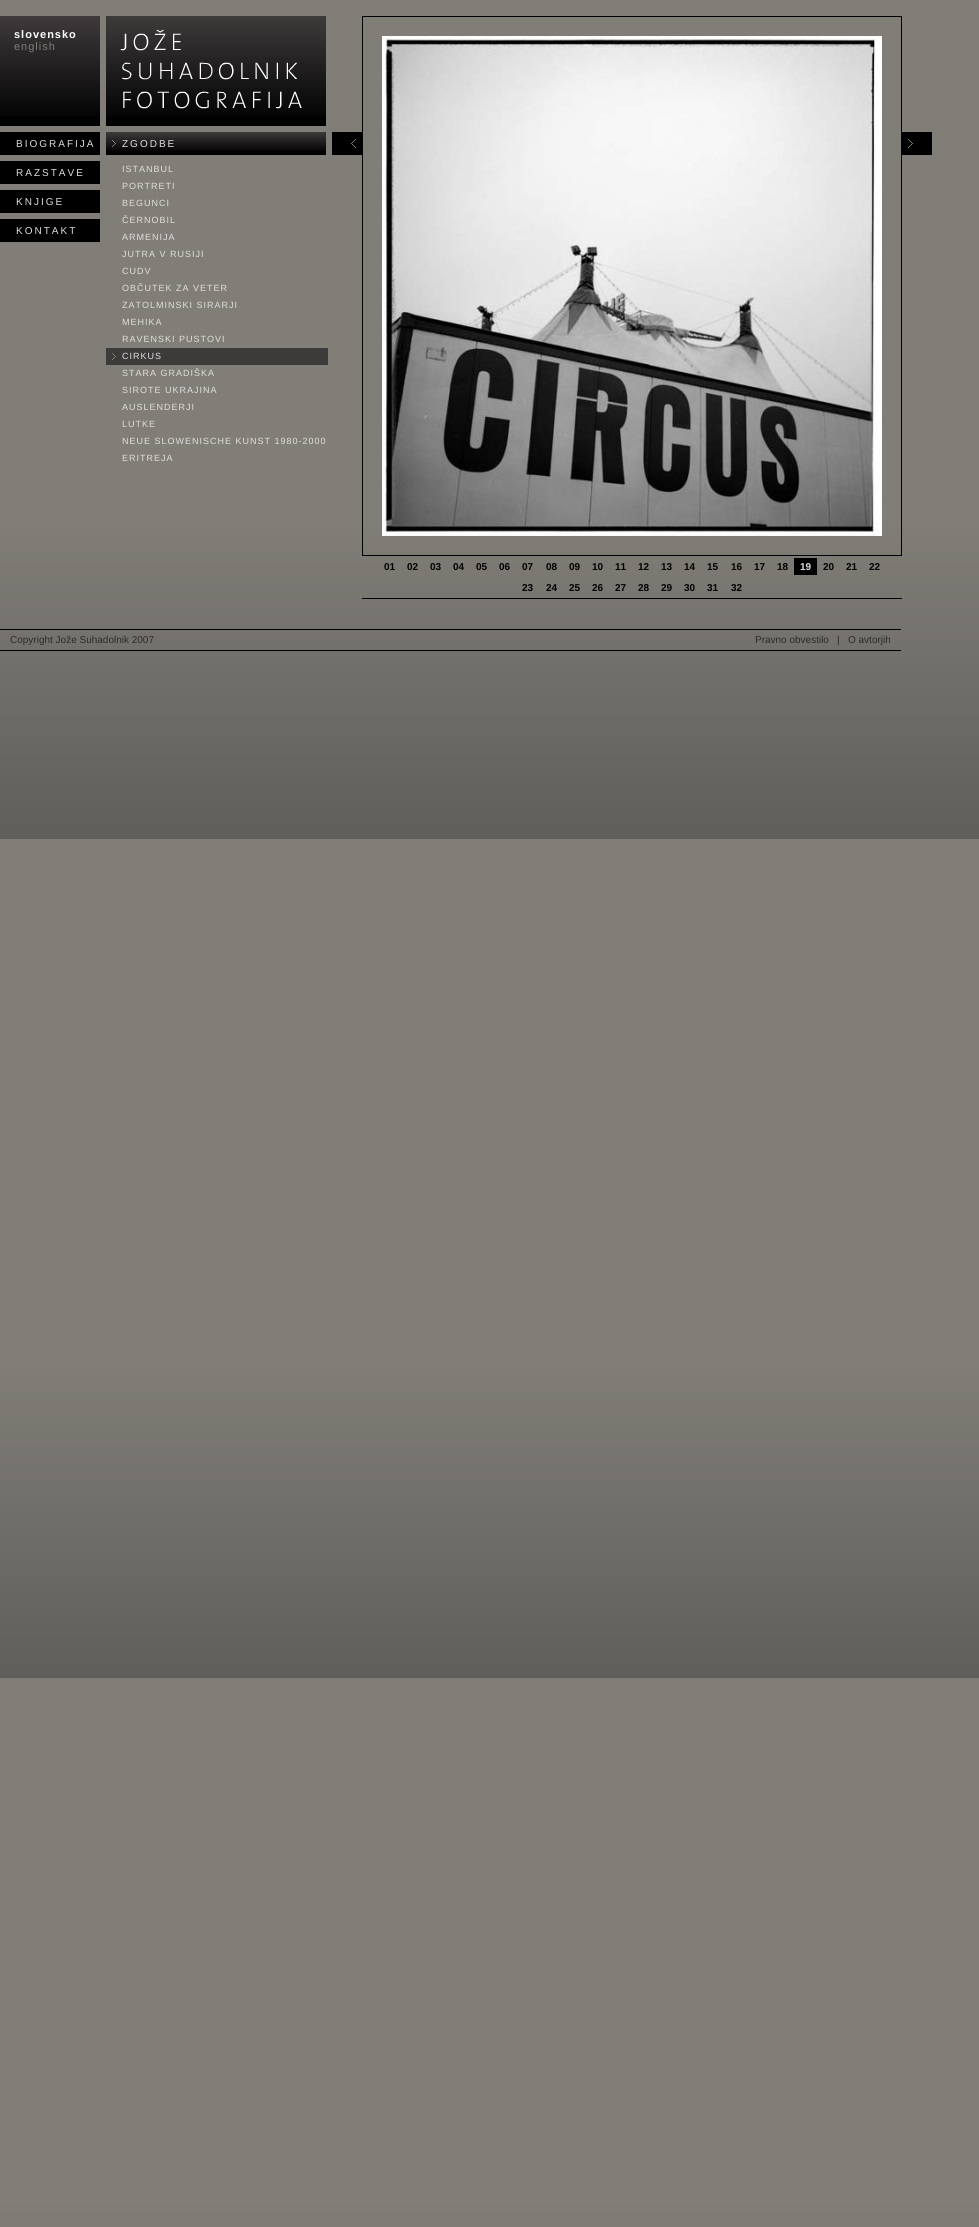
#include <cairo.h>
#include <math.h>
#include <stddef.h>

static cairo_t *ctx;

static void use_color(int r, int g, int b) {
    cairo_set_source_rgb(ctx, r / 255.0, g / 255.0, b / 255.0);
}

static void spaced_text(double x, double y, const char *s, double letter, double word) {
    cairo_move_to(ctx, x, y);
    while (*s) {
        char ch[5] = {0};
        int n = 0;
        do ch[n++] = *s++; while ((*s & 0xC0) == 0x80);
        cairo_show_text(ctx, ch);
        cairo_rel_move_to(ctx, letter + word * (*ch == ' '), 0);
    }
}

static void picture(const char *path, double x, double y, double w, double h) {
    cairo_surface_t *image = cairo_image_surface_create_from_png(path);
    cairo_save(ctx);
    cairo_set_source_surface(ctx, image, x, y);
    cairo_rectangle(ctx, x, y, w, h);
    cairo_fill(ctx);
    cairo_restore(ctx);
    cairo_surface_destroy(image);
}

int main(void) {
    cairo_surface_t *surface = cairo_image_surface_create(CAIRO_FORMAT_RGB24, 979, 2227);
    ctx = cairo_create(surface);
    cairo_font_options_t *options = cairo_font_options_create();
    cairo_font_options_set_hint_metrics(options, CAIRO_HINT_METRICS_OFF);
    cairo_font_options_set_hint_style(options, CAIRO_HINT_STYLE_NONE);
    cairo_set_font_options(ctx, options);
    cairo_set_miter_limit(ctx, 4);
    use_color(255, 255, 255);
    cairo_paint(ctx);
    picture("img1.png", 0, 0, 979, 2227);
    use_color(0, 0, 0);
    cairo_rectangle(ctx, 0, 116, 100, 10);
    cairo_fill(ctx);
    picture("img2.png", 0, 16, 100, 100);
    cairo_select_font_face(ctx, "Liberation Sans", CAIRO_FONT_SLANT_NORMAL, CAIRO_FONT_WEIGHT_BOLD);
    cairo_set_font_size(ctx, 11);
    use_color(255, 255, 255);
    spaced_text(14, 38, "slovensko", 1, 0);
    cairo_select_font_face(ctx, "Liberation Sans", CAIRO_FONT_SLANT_NORMAL, CAIRO_FONT_WEIGHT_NORMAL);
    use_color(128, 126, 119);
    spaced_text(14, 50, "english", 1, 0);
    use_color(0, 0, 0);
    cairo_rectangle(ctx, 0, 132, 100, 23);
    cairo_fill(ctx);
    cairo_set_font_size(ctx, 10);
    use_color(223, 223, 223);
    spaced_text(16, 147, "BIOGRAFIJA", 2, 0);
    use_color(0, 0, 0);
    cairo_rectangle(ctx, 0, 161, 100, 23);
    cairo_fill(ctx);
    use_color(223, 223, 223);
    spaced_text(16, 176, "RAZSTAVE", 2, 0);
    use_color(0, 0, 0);
    cairo_rectangle(ctx, 0, 190, 100, 23);
    cairo_fill(ctx);
    use_color(223, 223, 223);
    spaced_text(16, 205, "KNJIGE", 2, 0);
    use_color(0, 0, 0);
    cairo_rectangle(ctx, 0, 219, 100, 23);
    cairo_fill(ctx);
    use_color(223, 223, 223);
    spaced_text(16, 234, "KONTAKT", 2, 0);
    use_color(0, 0, 0);
    cairo_rectangle(ctx, 106, 117, 220, 9);
    cairo_fill(ctx);
    picture("img3.png", 106, 16, 220, 101);
    cairo_rectangle(ctx, 106, 151, 220, 4);
    cairo_fill(ctx);
    picture("img4.png", 106, 132, 220, 19);
    use_color(223, 223, 223);
    spaced_text(122, 147, "ZGODBE", 2, 0);
    cairo_set_font_size(ctx, 9);
    spaced_text(122, 172, "ISTANBUL", 1, 0);
    spaced_text(122, 189, "PORTRETI", 1, 0);
    spaced_text(122, 206, "BEGUNCI", 1, 0);
    spaced_text(122, 223, "ČERNOBIL", 1, 0);
    spaced_text(122, 240, "ARMENIJA", 1, 0);
    spaced_text(122, 257, "JUTRA V RUSIJI", 1, 0);
    spaced_text(122, 274, "CUDV", 1, 0);
    spaced_text(122, 291, "OBČUTEK ZA VETER", 1, 0);
    spaced_text(122, 308, "ZATOLMINSKI SIRARJI", 1, 0);
    spaced_text(122, 325, "MEHIKA", 1, 0);
    spaced_text(122, 342, "RAVENSKI PUSTOVI", 1, 0);
    use_color(61, 58, 58);
    cairo_rectangle(ctx, 106, 348, 222, 17);
    cairo_fill(ctx);
    picture("img5.png", 112, 353, 4, 7);
    use_color(223, 223, 223);
    spaced_text(122, 359, "CIRKUS", 1, 0);
    spaced_text(122, 376, "STARA GRADIŠKA", 1, 0);
    spaced_text(122, 393, "SIROTE UKRAJINA", 1, 0);
    spaced_text(122, 410, "AUSLENDERJI", 1, 0);
    spaced_text(122, 427, "LUTKE", 1, 0);
    spaced_text(122, 444, "NEUE SLOWENISCHE KUNST 1980-2000", 1, 0);
    spaced_text(122, 461, "ERITREJA", 1, 0);
    use_color(0, 0, 0);
    cairo_rectangle(ctx, 332, 132, 30, 23);
    cairo_fill(ctx);
    picture("img6.png", 351, 139, 5, 9);
    cairo_rectangle(ctx, 362.5, 16.5, 539, 539);
    cairo_set_line_width(ctx, 1);
    cairo_stroke(ctx);
    picture("img7.png", 382, 36, 500, 500);
    cairo_rectangle(ctx, 902, 132, 30, 23);
    cairo_fill(ctx);
    picture("img8.png", 908, 139, 5, 9);
    cairo_rectangle(ctx, 362, 598, 540, 1);
    cairo_fill(ctx);
    cairo_select_font_face(ctx, "Liberation Sans", CAIRO_FONT_SLANT_NORMAL, CAIRO_FONT_WEIGHT_BOLD);
    cairo_set_font_size(ctx, 10);
    cairo_move_to(ctx, 384, 570);
    cairo_show_text(ctx, "01");
    cairo_move_to(ctx, 407, 570);
    cairo_show_text(ctx, "02");
    cairo_move_to(ctx, 430, 570);
    cairo_show_text(ctx, "03");
    cairo_move_to(ctx, 453, 570);
    cairo_show_text(ctx, "04");
    cairo_move_to(ctx, 476, 570);
    cairo_show_text(ctx, "05");
    cairo_move_to(ctx, 499, 570);
    cairo_show_text(ctx, "06");
    cairo_move_to(ctx, 522, 570);
    cairo_show_text(ctx, "07");
    cairo_move_to(ctx, 546, 570);
    cairo_show_text(ctx, "08");
    cairo_move_to(ctx, 569, 570);
    cairo_show_text(ctx, "09");
    cairo_move_to(ctx, 592, 570);
    cairo_show_text(ctx, "10");
    cairo_move_to(ctx, 615, 570);
    cairo_show_text(ctx, "11");
    cairo_move_to(ctx, 638, 570);
    cairo_show_text(ctx, "12");
    cairo_move_to(ctx, 661, 570);
    cairo_show_text(ctx, "13");
    cairo_move_to(ctx, 684, 570);
    cairo_show_text(ctx, "14");
    cairo_move_to(ctx, 707, 570);
    cairo_show_text(ctx, "15");
    cairo_move_to(ctx, 731, 570);
    cairo_show_text(ctx, "16");
    cairo_move_to(ctx, 754, 570);
    cairo_show_text(ctx, "17");
    cairo_move_to(ctx, 777, 570);
    cairo_show_text(ctx, "18");
    cairo_rectangle(ctx, 794, 558, 23, 17);
    cairo_fill(ctx);
    use_color(223, 223, 223);
    cairo_move_to(ctx, 800, 570);
    cairo_show_text(ctx, "19");
    use_color(0, 0, 0);
    cairo_move_to(ctx, 823, 570);
    cairo_show_text(ctx, "20");
    cairo_move_to(ctx, 846, 570);
    cairo_show_text(ctx, "21");
    cairo_move_to(ctx, 869, 570);
    cairo_show_text(ctx, "22");
    cairo_move_to(ctx, 522, 591);
    cairo_show_text(ctx, "23");
    cairo_move_to(ctx, 546, 591);
    cairo_show_text(ctx, "24");
    cairo_move_to(ctx, 569, 591);
    cairo_show_text(ctx, "25");
    cairo_move_to(ctx, 592, 591);
    cairo_show_text(ctx, "26");
    cairo_move_to(ctx, 615, 591);
    cairo_show_text(ctx, "27");
    cairo_move_to(ctx, 638, 591);
    cairo_show_text(ctx, "28");
    cairo_move_to(ctx, 661, 591);
    cairo_show_text(ctx, "29");
    cairo_move_to(ctx, 684, 591);
    cairo_show_text(ctx, "30");
    cairo_move_to(ctx, 707, 591);
    cairo_show_text(ctx, "31");
    cairo_move_to(ctx, 731, 591);
    cairo_show_text(ctx, "32");
    cairo_rectangle(ctx, 0, 629, 901, 1);
    cairo_fill(ctx);
    cairo_rectangle(ctx, 0, 650, 901, 1);
    cairo_fill(ctx);
    cairo_select_font_face(ctx, "Liberation Sans", CAIRO_FONT_SLANT_NORMAL, CAIRO_FONT_WEIGHT_NORMAL);
    use_color(44, 43, 41);
    cairo_move_to(ctx, 10, 643);
    cairo_show_text(ctx, "Copyright Jože Suhadolnik 2007");
    cairo_move_to(ctx, 755, 643);
    cairo_show_text(ctx, "Pravno obvestilo");
    cairo_move_to(ctx, 837, 643);
    cairo_show_text(ctx, "|");
    cairo_move_to(ctx, 848, 643);
    cairo_show_text(ctx, "O avtorjih");
    cairo_surface_write_to_png(surface, "result.png");
    cairo_font_options_destroy(options);
    cairo_destroy(ctx);
    cairo_surface_destroy(surface);
    return 0;
}
